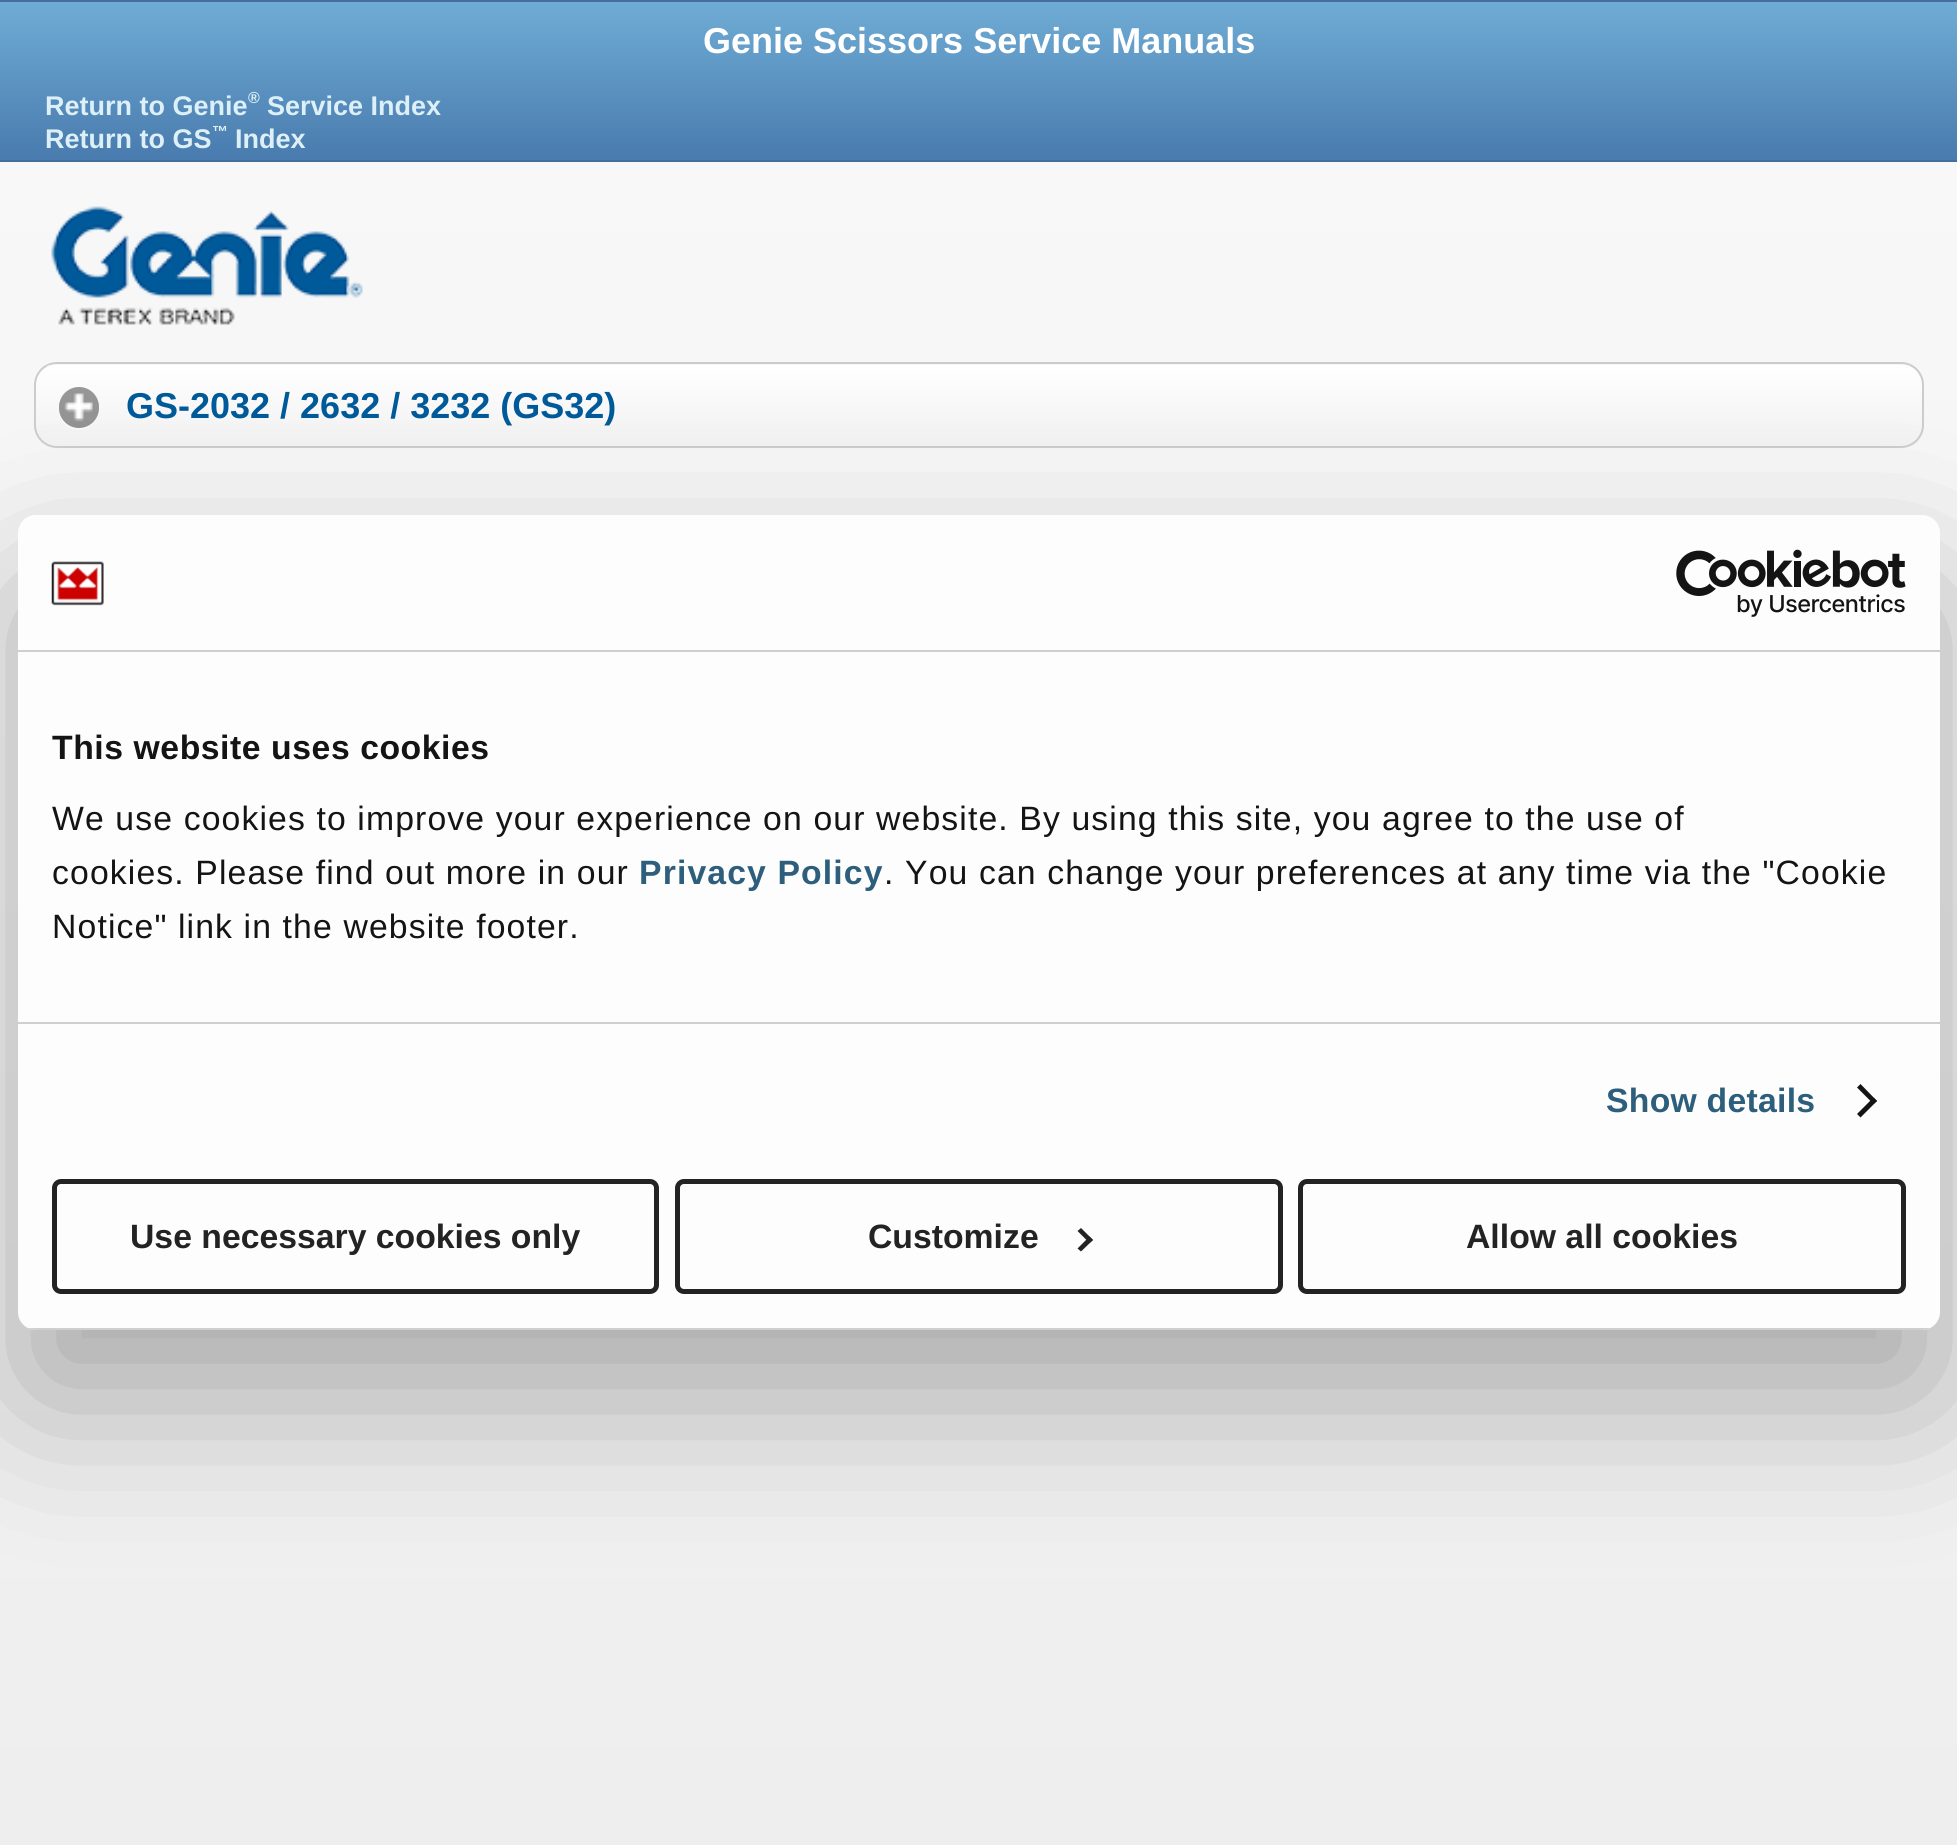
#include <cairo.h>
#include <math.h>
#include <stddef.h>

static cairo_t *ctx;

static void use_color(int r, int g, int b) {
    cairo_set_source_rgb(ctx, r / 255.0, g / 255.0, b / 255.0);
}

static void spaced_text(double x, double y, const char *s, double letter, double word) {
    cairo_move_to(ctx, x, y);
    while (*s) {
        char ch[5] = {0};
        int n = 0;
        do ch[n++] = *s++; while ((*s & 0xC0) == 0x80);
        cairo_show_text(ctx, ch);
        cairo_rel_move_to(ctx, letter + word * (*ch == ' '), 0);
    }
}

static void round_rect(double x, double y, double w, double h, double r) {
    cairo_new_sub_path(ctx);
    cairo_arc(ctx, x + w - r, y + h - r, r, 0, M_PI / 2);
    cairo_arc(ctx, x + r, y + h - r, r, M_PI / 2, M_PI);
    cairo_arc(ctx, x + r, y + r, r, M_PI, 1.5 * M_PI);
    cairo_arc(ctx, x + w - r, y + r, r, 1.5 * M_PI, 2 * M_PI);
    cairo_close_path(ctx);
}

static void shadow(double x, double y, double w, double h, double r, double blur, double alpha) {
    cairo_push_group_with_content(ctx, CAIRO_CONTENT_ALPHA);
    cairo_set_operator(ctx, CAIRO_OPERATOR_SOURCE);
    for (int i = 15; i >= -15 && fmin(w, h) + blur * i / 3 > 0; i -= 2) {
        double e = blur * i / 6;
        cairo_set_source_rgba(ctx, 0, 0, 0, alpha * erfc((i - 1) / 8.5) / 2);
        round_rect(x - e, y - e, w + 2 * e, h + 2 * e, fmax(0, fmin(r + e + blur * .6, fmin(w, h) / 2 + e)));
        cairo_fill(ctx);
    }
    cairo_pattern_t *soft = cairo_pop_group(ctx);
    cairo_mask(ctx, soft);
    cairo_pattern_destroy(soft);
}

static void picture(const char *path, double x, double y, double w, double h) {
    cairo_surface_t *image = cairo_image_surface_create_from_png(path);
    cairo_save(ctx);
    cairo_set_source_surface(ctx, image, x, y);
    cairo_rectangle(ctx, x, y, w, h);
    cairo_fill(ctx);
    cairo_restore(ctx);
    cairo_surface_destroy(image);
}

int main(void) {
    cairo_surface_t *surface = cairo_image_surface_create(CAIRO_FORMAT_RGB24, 1957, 1845);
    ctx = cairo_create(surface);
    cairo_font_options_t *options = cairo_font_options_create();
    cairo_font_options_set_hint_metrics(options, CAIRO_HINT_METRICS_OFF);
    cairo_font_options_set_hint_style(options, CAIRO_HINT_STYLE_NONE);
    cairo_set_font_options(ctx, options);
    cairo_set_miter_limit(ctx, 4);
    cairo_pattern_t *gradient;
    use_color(255, 255, 255);
    cairo_paint(ctx);
    gradient = cairo_pattern_create_linear(979, 0, 979, 1845);
    cairo_pattern_add_color_stop_rgba(gradient, 0, 0.976, 0.976, 0.976, 1);
    cairo_pattern_add_color_stop_rgba(gradient, 1, 0.933, 0.933, 0.933, 1);
    cairo_set_source(ctx, gradient);
    cairo_pattern_destroy(gradient);
    cairo_rectangle(ctx, 0, 162, 1957, 1683);
    cairo_fill(ctx);
    gradient = cairo_pattern_create_linear(979, 2.2, 979, 160);
    cairo_pattern_add_color_stop_rgba(gradient, 0, 0.435, 0.675, 0.835, 1);
    cairo_pattern_add_color_stop_rgba(gradient, 1, 0.286, 0.482, 0.682, 1);
    cairo_set_source(ctx, gradient);
    cairo_pattern_destroy(gradient);
    cairo_rectangle(ctx, 0, 2, 1957, 158);
    cairo_fill(ctx);
    use_color(69, 111, 154);
    cairo_rectangle(ctx, 0, 0, 1957, 2);
    cairo_fill(ctx);
    cairo_rectangle(ctx, 0, 160, 1957, 2);
    cairo_fill(ctx);
    cairo_select_font_face(ctx, "Liberation Sans", CAIRO_FONT_SLANT_NORMAL, CAIRO_FONT_WEIGHT_BOLD);
    cairo_set_font_size(ctx, 36);
    use_color(255, 255, 255);
    cairo_move_to(ctx, 703, 53);
    cairo_show_text(ctx, "Genie Scissors Service Manuals");
    cairo_set_font_size(ctx, 27);
    use_color(221, 240, 248);
    cairo_move_to(ctx, 45, 115);
    cairo_show_text(ctx, "Return to Genie");
    cairo_set_font_size(ctx, 16);
    cairo_move_to(ctx, 248, 103);
    cairo_show_text(ctx, "®");
    cairo_set_font_size(ctx, 27);
    cairo_move_to(ctx, 267, 115);
    cairo_show_text(ctx, "Service Index");
    cairo_move_to(ctx, 45, 148);
    cairo_show_text(ctx, "Return to GS");
    cairo_set_font_size(ctx, 16);
    cairo_move_to(ctx, 212, 137);
    cairo_show_text(ctx, "™");
    cairo_set_font_size(ctx, 27);
    cairo_move_to(ctx, 235, 148);
    cairo_show_text(ctx, "Index");
    picture("img1.png", 51, 206, 312, 119);
    gradient = cairo_pattern_create_linear(979, 364, 979, 446);
    cairo_pattern_add_color_stop_rgba(gradient, 0, 1, 1, 1, 1);
    cairo_pattern_add_color_stop_rgba(gradient, 1, 0.945, 0.945, 0.945, 1);
    cairo_set_source(ctx, gradient);
    cairo_pattern_destroy(gradient);
    round_rect(36, 365, 1886, 81, 20);
    cairo_fill(ctx);
    round_rect(35, 363, 1888, 84, 22);
    use_color(204, 204, 204);
    cairo_stroke(ctx);
    cairo_set_source_rgba(ctx, 1, 1, 1, 0.3);
    cairo_rectangle(ctx, 47, 365, 1863, 2);
    cairo_fill(ctx);
    use_color(249, 249, 249);
    cairo_new_path(ctx);
    cairo_move_to(ctx, 59, 412.5);
    cairo_curve_to(ctx, 59.5, 416, 61, 419.5, 63, 422.5);
    cairo_curve_to(ctx, 75.5, 438, 100, 428, 99, 408);
    cairo_curve_to(ctx, 98, 431.5, 65, 434.5, 59, 412.5);
    cairo_close_path(ctx);
    cairo_fill(ctx);
    cairo_set_source_rgba(ctx, 0, 0, 0, 0.4);
    round_rect(59, 387, 40, 41, 20);
    cairo_fill(ctx);
    picture("img2.png", 64, 393, 29, 29);
    cairo_set_font_size(ctx, 36);
    use_color(0, 90, 153);
    cairo_move_to(ctx, 126, 418);
    cairo_show_text(ctx, "GS-2032 / 2632 / 3232 (GS32)");
    use_color(0, 0, 0);
    shadow(18, 587, 1922, 815, 18, 76.5, 0.3);
    use_color(253, 253, 253);
    round_rect(18, 515, 1922, 815, 18);
    cairo_fill(ctx);
    use_color(207, 207, 210);
    cairo_rectangle(ctx, 18, 650, 1922, 2);
    cairo_fill(ctx);
    picture("img3.png", 51, 561, 53, 45);
    picture("img4.png", 1676, 549, 230, 68);
    cairo_rectangle(ctx, 18, 1022, 1922, 2);
    cairo_fill(ctx);
    cairo_set_font_size(ctx, 33.75);
    use_color(20, 20, 20);
    spaced_text(52, 759, "This website uses cookies", 0.55, 0);
    cairo_select_font_face(ctx, "Liberation Sans", CAIRO_FONT_SLANT_NORMAL, CAIRO_FONT_WEIGHT_NORMAL);
    spaced_text(52, 830, "We use cookies to improve your experience on our website. By using this site, you agree to the use of", 1.12, 0);
    spaced_text(52, 884, "cookies. Please find out more in our", 1.12, 0);
    cairo_select_font_face(ctx, "Liberation Sans", CAIRO_FONT_SLANT_NORMAL, CAIRO_FONT_WEIGHT_BOLD);
    use_color(45, 94, 124);
    spaced_text(639, 884, "Privacy Policy", 1.12, 0);
    cairo_select_font_face(ctx, "Liberation Sans", CAIRO_FONT_SLANT_NORMAL, CAIRO_FONT_WEIGHT_NORMAL);
    use_color(20, 20, 20);
    spaced_text(884, 884, ". You can change your preferences at any time via the \"Cookie", 1.12, 0);
    spaced_text(52, 938, "Notice\" link in the website footer.", 1.12, 0);
    cairo_select_font_face(ctx, "Liberation Sans", CAIRO_FONT_SLANT_NORMAL, CAIRO_FONT_WEIGHT_BOLD);
    use_color(45, 94, 124);
    spaced_text(1606, 1112, "Show details", 0.25, 0);
    use_color(20, 20, 20);
    cairo_new_path(ctx);
    cairo_move_to(ctx, 1860.5, 1084);
    cairo_line_to(ctx, 1877, 1101);
    cairo_line_to(ctx, 1873.5, 1104);
    cairo_line_to(ctx, 1857, 1087.5);
    cairo_close_path(ctx);
    cairo_fill(ctx);
    cairo_new_path(ctx);
    cairo_move_to(ctx, 1873.5, 1097.5);
    cairo_line_to(ctx, 1877, 1101);
    cairo_line_to(ctx, 1860.5, 1117.5);
    cairo_line_to(ctx, 1857, 1114);
    cairo_close_path(ctx);
    cairo_fill(ctx);
    cairo_save(ctx);
    round_rect(18, 515, 1922, 815, 18);
    cairo_clip(ctx);
    use_color(207, 207, 210);
    cairo_rectangle(ctx, 28, 1328, 1902, 2);
    cairo_fill(ctx);
    cairo_restore(ctx);
    round_rect(54.5, 1181.5, 602, 110, 6.5);
    use_color(35, 35, 36);
    cairo_set_line_width(ctx, 5);
    cairo_stroke(ctx);
    cairo_move_to(ctx, 130, 1248);
    cairo_show_text(ctx, "Use necessary cookies only");
    round_rect(677.5, 1181.5, 603, 110, 6.5);
    cairo_stroke(ctx);
    cairo_move_to(ctx, 868, 1248);
    cairo_show_text(ctx, "Customize");
    cairo_new_path(ctx);
    cairo_move_to(ctx, 1081, 1228);
    cairo_line_to(ctx, 1093, 1240);
    cairo_line_to(ctx, 1089.5, 1243);
    cairo_line_to(ctx, 1077.5, 1231);
    cairo_close_path(ctx);
    cairo_fill(ctx);
    cairo_new_path(ctx);
    cairo_move_to(ctx, 1089.5, 1236.5);
    cairo_line_to(ctx, 1093, 1240);
    cairo_line_to(ctx, 1081, 1251.5);
    cairo_line_to(ctx, 1077.5, 1248.5);
    cairo_close_path(ctx);
    cairo_fill(ctx);
    round_rect(1300.5, 1181.5, 603, 110, 6.5);
    cairo_stroke(ctx);
    cairo_move_to(ctx, 1466, 1248);
    cairo_show_text(ctx, "Allow all cookies");
    cairo_surface_write_to_png(surface, "result.png");
    cairo_font_options_destroy(options);
    cairo_destroy(ctx);
    cairo_surface_destroy(surface);
    return 0;
}
